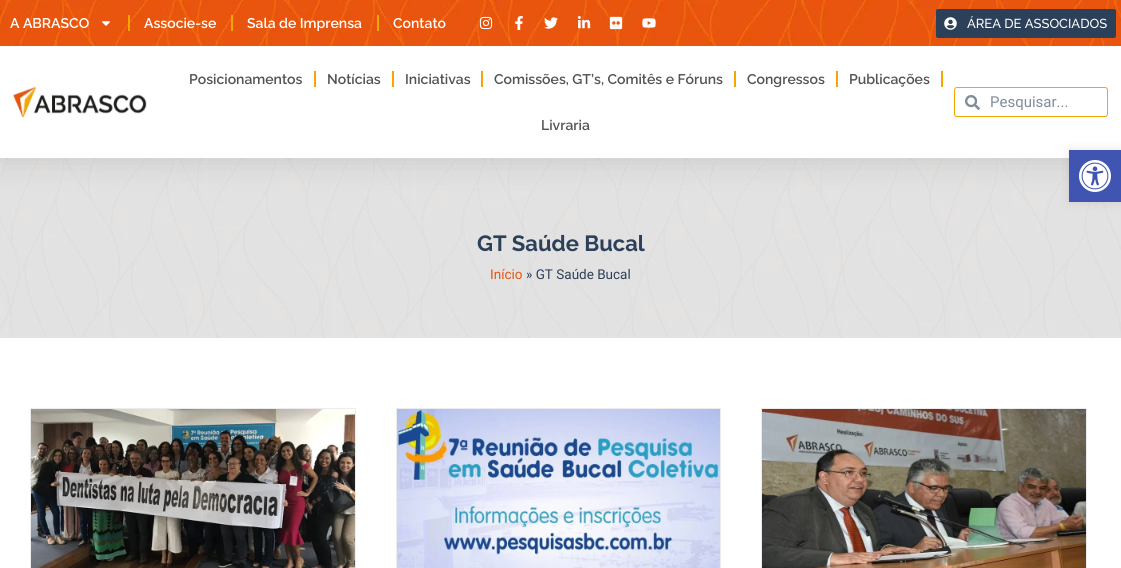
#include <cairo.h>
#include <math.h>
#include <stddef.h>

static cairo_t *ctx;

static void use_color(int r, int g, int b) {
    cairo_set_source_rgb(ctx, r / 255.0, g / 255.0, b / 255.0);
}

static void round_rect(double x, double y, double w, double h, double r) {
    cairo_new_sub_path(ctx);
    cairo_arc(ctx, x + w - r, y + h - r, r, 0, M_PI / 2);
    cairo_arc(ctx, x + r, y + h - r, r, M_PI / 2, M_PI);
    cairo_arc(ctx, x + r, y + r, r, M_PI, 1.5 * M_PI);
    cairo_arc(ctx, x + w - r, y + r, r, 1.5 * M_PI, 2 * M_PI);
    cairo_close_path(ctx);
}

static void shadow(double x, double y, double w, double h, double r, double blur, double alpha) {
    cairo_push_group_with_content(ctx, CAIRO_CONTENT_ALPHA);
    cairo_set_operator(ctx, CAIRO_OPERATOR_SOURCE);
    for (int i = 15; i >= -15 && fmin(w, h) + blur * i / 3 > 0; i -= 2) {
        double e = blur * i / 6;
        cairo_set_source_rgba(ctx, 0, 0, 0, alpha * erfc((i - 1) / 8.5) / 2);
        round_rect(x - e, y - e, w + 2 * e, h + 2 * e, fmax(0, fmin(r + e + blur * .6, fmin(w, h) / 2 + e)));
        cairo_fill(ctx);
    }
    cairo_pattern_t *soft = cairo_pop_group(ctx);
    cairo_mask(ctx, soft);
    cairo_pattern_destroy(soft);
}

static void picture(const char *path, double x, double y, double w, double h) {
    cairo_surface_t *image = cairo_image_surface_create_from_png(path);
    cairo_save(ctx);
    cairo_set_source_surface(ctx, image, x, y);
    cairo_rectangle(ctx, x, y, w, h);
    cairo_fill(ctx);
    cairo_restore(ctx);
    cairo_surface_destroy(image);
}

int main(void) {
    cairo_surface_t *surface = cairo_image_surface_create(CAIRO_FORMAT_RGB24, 1121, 568);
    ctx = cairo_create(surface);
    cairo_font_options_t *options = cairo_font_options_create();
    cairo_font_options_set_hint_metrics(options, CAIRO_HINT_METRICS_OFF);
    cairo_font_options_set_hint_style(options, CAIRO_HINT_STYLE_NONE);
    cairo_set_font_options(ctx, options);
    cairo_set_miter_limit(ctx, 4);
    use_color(255, 255, 255);
    cairo_paint(ctx);
    use_color(238, 238, 238);
    cairo_rectangle(ctx, 0, 158, 1121, 180);
    cairo_fill(ctx);
    picture("img13.png", 0, 158, 1121, 180);
    use_color(0, 0, 0);
    shadow(0, 5, 1121, 158, 0, 15, 0.1);
    picture("img1.png", 0, 0, 1121, 46);
    cairo_select_font_face(ctx, "Raleway SemiBold", CAIRO_FONT_SLANT_NORMAL, CAIRO_FONT_WEIGHT_NORMAL);
    cairo_set_font_size(ctx, 14);
    use_color(255, 255, 255);
    cairo_move_to(ctx, 10, 28);
    cairo_show_text(ctx, "A ABRASCO");
    picture("img2.png", 102, 21, 8, 5);
    use_color(245, 166, 0);
    cairo_rectangle(ctx, 128, 15, 2, 16);
    cairo_fill(ctx);
    use_color(255, 255, 255);
    cairo_move_to(ctx, 144, 28);
    cairo_show_text(ctx, "Associe-se");
    use_color(245, 166, 0);
    cairo_rectangle(ctx, 231, 15, 2, 16);
    cairo_fill(ctx);
    use_color(255, 255, 255);
    cairo_move_to(ctx, 247, 28);
    cairo_show_text(ctx, "Sala de Imprensa");
    use_color(245, 166, 0);
    cairo_rectangle(ctx, 377, 15, 2, 16);
    cairo_fill(ctx);
    use_color(255, 255, 255);
    cairo_move_to(ctx, 393, 28);
    cairo_show_text(ctx, "Contato");
    picture("img3.png", 479, 16, 14, 14);
    picture("img4.png", 515, 16, 8, 14);
    picture("img5.png", 544, 17, 14, 12);
    picture("img6.png", 577, 16, 14, 13);
    picture("img7.png", 609, 16, 14, 14);
    picture("img8.png", 642, 18, 14, 10);
    use_color(45, 64, 89);
    round_rect(936, 9, 180, 29, 2);
    cairo_fill(ctx);
    picture("img9.png", 944, 17, 13, 13);
    cairo_select_font_face(ctx, "Raleway Medium", CAIRO_FONT_SLANT_NORMAL, CAIRO_FONT_WEIGHT_NORMAL);
    cairo_set_font_size(ctx, 13);
    use_color(255, 255, 255);
    cairo_move_to(ctx, 967, 28);
    cairo_show_text(ctx, "ÁREA DE ASSOCIADOS");
    cairo_rectangle(ctx, 0, 46, 1121, 112);
    cairo_fill(ctx);
    picture("img10.png", 13, 86, 134, 32);
    cairo_select_font_face(ctx, "Raleway SemiBold", CAIRO_FONT_SLANT_NORMAL, CAIRO_FONT_WEIGHT_NORMAL);
    cairo_set_font_size(ctx, 14);
    use_color(84, 82, 82);
    cairo_move_to(ctx, 189, 84);
    cairo_show_text(ctx, "Posicionamentos");
    use_color(245, 166, 0);
    cairo_rectangle(ctx, 314, 71, 2, 16);
    cairo_fill(ctx);
    use_color(84, 82, 82);
    cairo_move_to(ctx, 327, 84);
    cairo_show_text(ctx, "Notícias");
    use_color(245, 166, 0);
    cairo_rectangle(ctx, 392, 71, 2, 16);
    cairo_fill(ctx);
    use_color(84, 82, 82);
    cairo_move_to(ctx, 405, 84);
    cairo_show_text(ctx, "Iniciativas");
    use_color(245, 166, 0);
    cairo_rectangle(ctx, 481, 71, 2, 16);
    cairo_fill(ctx);
    use_color(84, 82, 82);
    cairo_move_to(ctx, 494, 84);
    cairo_show_text(ctx, "Comissões, GT’s, Comitês e Fóruns");
    use_color(245, 166, 0);
    cairo_rectangle(ctx, 734, 71, 2, 16);
    cairo_fill(ctx);
    use_color(84, 82, 82);
    cairo_move_to(ctx, 747, 84);
    cairo_show_text(ctx, "Congressos");
    use_color(245, 166, 0);
    cairo_rectangle(ctx, 836, 71, 2, 16);
    cairo_fill(ctx);
    use_color(84, 82, 82);
    cairo_move_to(ctx, 849, 84);
    cairo_show_text(ctx, "Publicações");
    use_color(245, 166, 0);
    cairo_rectangle(ctx, 941, 71, 2, 16);
    cairo_fill(ctx);
    use_color(84, 82, 82);
    cairo_move_to(ctx, 541, 130);
    cairo_show_text(ctx, "Livraria");
    round_rect(954.5, 87.5, 153, 29, 2.5);
    use_color(245, 166, 0);
    cairo_set_line_width(ctx, 1);
    cairo_stroke(ctx);
    picture("img11.png", 965, 95, 15, 15);
    cairo_select_font_face(ctx, "Roboto", CAIRO_FONT_SLANT_NORMAL, CAIRO_FONT_WEIGHT_NORMAL);
    cairo_set_font_size(ctx, 15);
    use_color(129, 140, 155);
    cairo_move_to(ctx, 990, 107);
    cairo_show_text(ctx, "Pesquisar...");
    use_color(0, 0, 0);
    shadow(1069, 150, 52, 52, 0, 5, 0.1);
    use_color(64, 84, 178);
    cairo_rectangle(ctx, 1069, 150, 52, 52);
    cairo_fill(ctx);
    picture("img12.png", 1079, 160, 32, 32);
    cairo_select_font_face(ctx, "Raleway", CAIRO_FONT_SLANT_NORMAL, CAIRO_FONT_WEIGHT_BOLD);
    cairo_set_font_size(ctx, 22);
    use_color(45, 64, 89);
    cairo_move_to(ctx, 477, 251);
    cairo_show_text(ctx, "GT Saúde Bucal");
    cairo_select_font_face(ctx, "Roboto", CAIRO_FONT_SLANT_NORMAL, CAIRO_FONT_WEIGHT_NORMAL);
    cairo_set_font_size(ctx, 13.5);
    use_color(232, 83, 14);
    cairo_move_to(ctx, 490, 279);
    cairo_show_text(ctx, "Início");
    use_color(45, 64, 89);
    cairo_move_to(ctx, 526, 279);
    cairo_show_text(ctx, "» GT Saúde Bucal");
    cairo_rectangle(ctx, 30.5, 408.5, 325, 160);
    use_color(236, 236, 236);
    cairo_stroke(ctx);
    picture("img14.png", 31, 409, 324, 159);
    cairo_rectangle(ctx, 396.5, 408.5, 324, 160);
    cairo_stroke(ctx);
    picture("img15.png", 397, 409, 323, 159);
    cairo_rectangle(ctx, 761.5, 408.5, 325, 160);
    cairo_stroke(ctx);
    picture("img16.png", 762, 409, 324, 159);
    cairo_surface_write_to_png(surface, "result.png");
    cairo_font_options_destroy(options);
    cairo_destroy(ctx);
    cairo_surface_destroy(surface);
    return 0;
}
